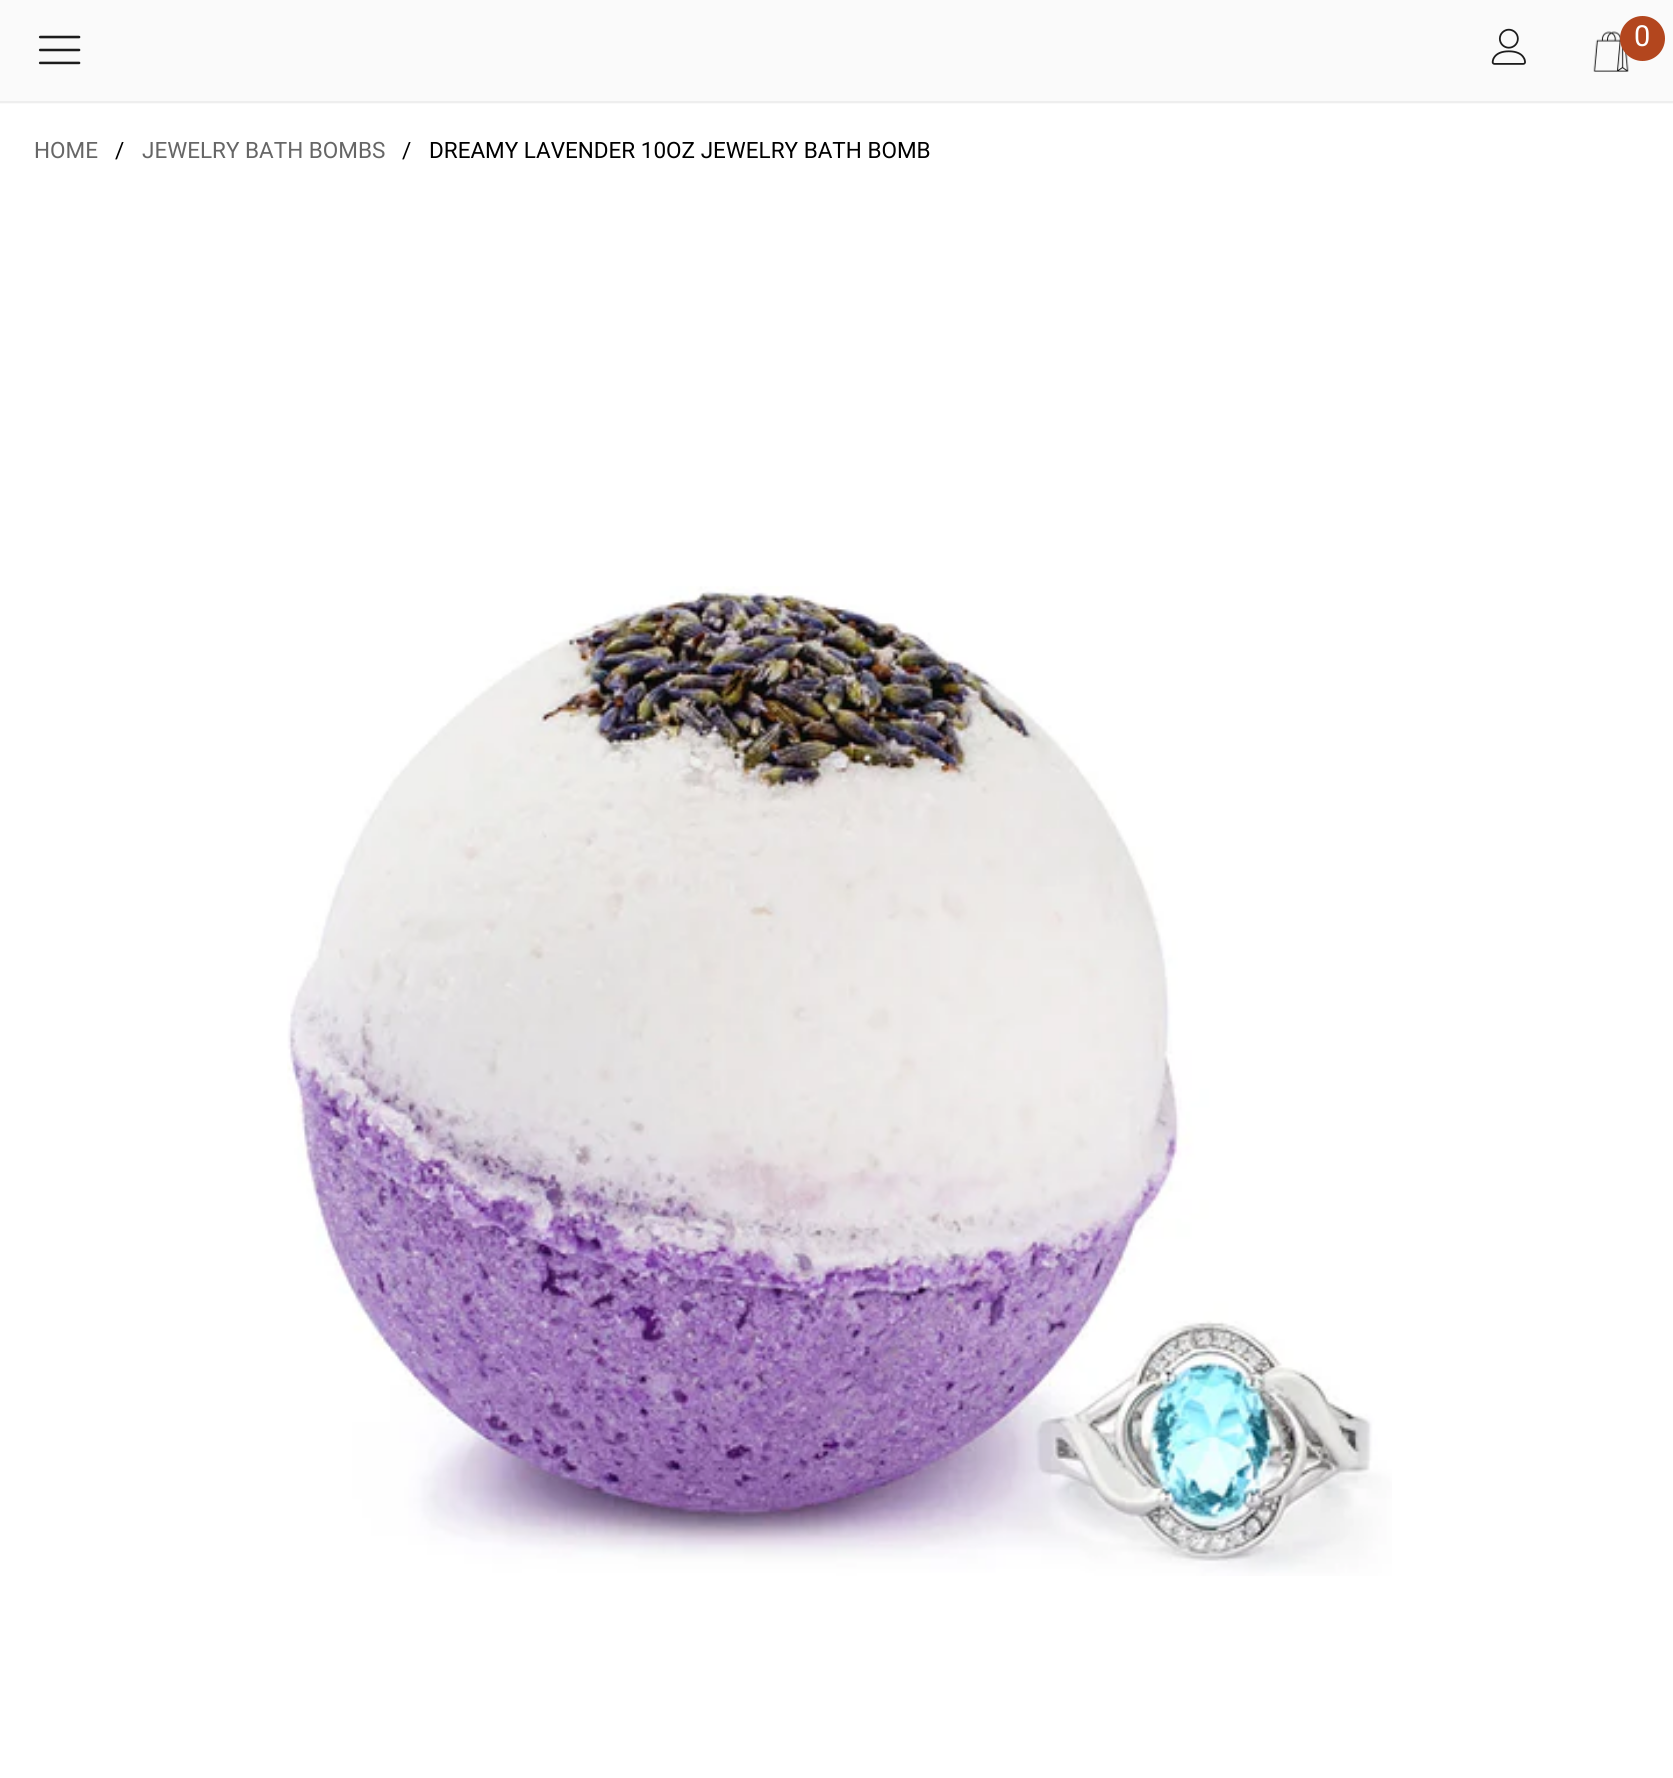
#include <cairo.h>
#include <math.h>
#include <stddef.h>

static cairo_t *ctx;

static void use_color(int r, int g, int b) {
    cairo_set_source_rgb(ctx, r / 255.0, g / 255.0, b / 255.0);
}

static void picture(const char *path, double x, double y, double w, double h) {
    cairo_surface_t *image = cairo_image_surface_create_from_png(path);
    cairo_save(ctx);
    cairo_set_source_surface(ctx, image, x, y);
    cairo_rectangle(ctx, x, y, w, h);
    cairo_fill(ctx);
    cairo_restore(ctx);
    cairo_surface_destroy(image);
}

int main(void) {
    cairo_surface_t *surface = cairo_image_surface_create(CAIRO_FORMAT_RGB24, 1673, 1778);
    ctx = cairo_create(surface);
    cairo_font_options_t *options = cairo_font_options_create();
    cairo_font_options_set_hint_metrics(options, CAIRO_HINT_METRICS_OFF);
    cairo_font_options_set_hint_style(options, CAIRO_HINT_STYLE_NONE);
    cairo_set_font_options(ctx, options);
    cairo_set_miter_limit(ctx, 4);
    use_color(255, 255, 255);
    cairo_paint(ctx);
    use_color(250, 250, 250);
    cairo_rectangle(ctx, 0, 0, 1673, 104);
    cairo_fill(ctx);
    use_color(238, 238, 238);
    cairo_rectangle(ctx, 0, 101, 1673, 2);
    cairo_fill(ctx);
    picture("img1.png", 38, 35, 43, 30);
    picture("img2.png", 1491, 28, 35, 37);
    picture("img3.png", 1593, 31, 36, 41);
    use_color(179, 70, 30);
    cairo_arc(ctx, 1642.5, 38.5, 22.5, 0, 2 * M_PI);
    cairo_fill(ctx);
    cairo_select_font_face(ctx, "Roboto", CAIRO_FONT_SLANT_NORMAL, CAIRO_FONT_WEIGHT_NORMAL);
    cairo_set_font_size(ctx, 29);
    use_color(255, 255, 255);
    cairo_move_to(ctx, 1634, 46);
    cairo_show_text(ctx, "0");
    cairo_set_font_size(ctx, 22.5);
    use_color(102, 102, 102);
    cairo_move_to(ctx, 34, 158);
    cairo_show_text(ctx, "HOME");
    use_color(0, 0, 0);
    cairo_move_to(ctx, 115, 158);
    cairo_show_text(ctx, "/");
    use_color(102, 102, 102);
    cairo_move_to(ctx, 142, 158);
    cairo_show_text(ctx, "JEWELRY BATH BOMBS");
    use_color(0, 0, 0);
    cairo_move_to(ctx, 402, 158);
    cairo_show_text(ctx, "/");
    cairo_move_to(ctx, 429, 158);
    cairo_show_text(ctx, "DREAMY LAVENDER 10OZ JEWELRY BATH BOMB");
    picture("img4.png", 287, 586, 1105, 990);
    cairo_surface_write_to_png(surface, "result.png");
    cairo_font_options_destroy(options);
    cairo_destroy(ctx);
    cairo_surface_destroy(surface);
    return 0;
}
